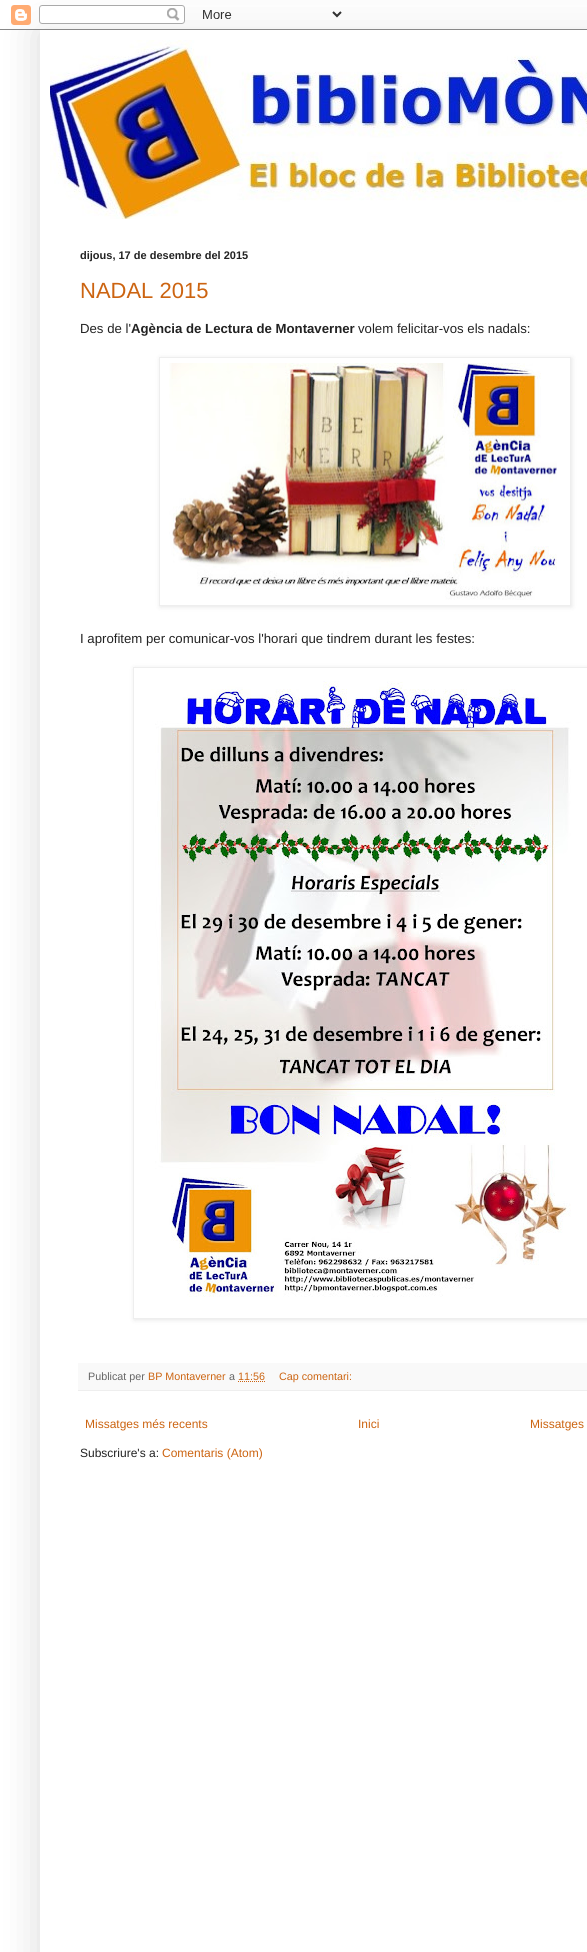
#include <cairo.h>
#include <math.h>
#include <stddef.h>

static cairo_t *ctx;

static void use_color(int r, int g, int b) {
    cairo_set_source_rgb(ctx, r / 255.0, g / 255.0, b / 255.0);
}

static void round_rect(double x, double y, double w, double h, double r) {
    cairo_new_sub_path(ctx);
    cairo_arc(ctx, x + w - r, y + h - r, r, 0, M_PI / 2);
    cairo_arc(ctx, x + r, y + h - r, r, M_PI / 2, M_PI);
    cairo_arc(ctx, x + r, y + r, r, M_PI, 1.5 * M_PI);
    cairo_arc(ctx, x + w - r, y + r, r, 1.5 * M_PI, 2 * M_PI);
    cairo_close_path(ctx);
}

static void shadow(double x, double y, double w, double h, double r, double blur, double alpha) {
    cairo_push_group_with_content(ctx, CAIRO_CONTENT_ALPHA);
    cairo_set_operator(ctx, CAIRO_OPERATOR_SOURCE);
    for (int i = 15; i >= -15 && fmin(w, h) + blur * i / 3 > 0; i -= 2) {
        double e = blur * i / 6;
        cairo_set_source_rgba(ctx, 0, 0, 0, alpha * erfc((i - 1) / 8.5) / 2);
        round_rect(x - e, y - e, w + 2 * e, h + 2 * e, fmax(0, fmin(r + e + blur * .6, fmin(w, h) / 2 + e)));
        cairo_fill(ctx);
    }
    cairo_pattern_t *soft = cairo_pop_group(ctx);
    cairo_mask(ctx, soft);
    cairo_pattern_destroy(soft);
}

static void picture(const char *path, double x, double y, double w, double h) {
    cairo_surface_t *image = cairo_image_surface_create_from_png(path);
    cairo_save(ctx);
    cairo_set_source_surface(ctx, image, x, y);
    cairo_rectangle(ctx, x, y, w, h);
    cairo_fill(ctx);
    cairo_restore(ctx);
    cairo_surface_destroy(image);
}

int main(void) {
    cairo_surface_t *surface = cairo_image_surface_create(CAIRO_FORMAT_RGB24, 587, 1952);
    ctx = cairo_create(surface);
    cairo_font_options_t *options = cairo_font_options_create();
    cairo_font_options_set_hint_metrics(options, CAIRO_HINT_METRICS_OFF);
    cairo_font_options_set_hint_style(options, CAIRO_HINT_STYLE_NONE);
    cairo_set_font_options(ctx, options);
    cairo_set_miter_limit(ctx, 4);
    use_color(255, 255, 255);
    cairo_paint(ctx);
    cairo_save(ctx);
    cairo_set_fill_rule(ctx, CAIRO_FILL_RULE_EVEN_ODD);
    cairo_new_path(ctx);
    cairo_move_to(ctx, 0, 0);
    cairo_line_to(ctx, 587, 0);
    cairo_line_to(ctx, 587, 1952);
    cairo_line_to(ctx, 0, 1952);
    cairo_close_path(ctx);
    cairo_move_to(ctx, 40, 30);
    cairo_line_to(ctx, 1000, 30);
    cairo_line_to(ctx, 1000, 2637);
    cairo_line_to(ctx, 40, 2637);
    cairo_close_path(ctx);
    cairo_clip(ctx);
    use_color(0, 0, 0);
    shadow(40, 30, 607, 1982, 0, 20, 0.15);
    cairo_restore(ctx);
    picture("img1.png", 0, 5, 587, 25);
    picture("img2.png", 50, 40, 537, 179);
    cairo_select_font_face(ctx, "Liberation Sans", CAIRO_FONT_SLANT_NORMAL, CAIRO_FONT_WEIGHT_BOLD);
    cairo_set_font_size(ctx, 11);
    use_color(34, 34, 34);
    cairo_move_to(ctx, 80, 259);
    cairo_show_text(ctx, "dijous, 17 de desembre del 2015");
    cairo_select_font_face(ctx, "Liberation Sans", CAIRO_FONT_SLANT_NORMAL, CAIRO_FONT_WEIGHT_NORMAL);
    cairo_set_font_size(ctx, 22);
    use_color(204, 100, 17);
    cairo_move_to(ctx, 80, 298);
    cairo_show_text(ctx, "NADAL 2015");
    cairo_set_font_size(ctx, 13.2);
    use_color(34, 34, 34);
    cairo_move_to(ctx, 80, 333);
    cairo_show_text(ctx, "Des de l'");
    cairo_select_font_face(ctx, "Liberation Sans", CAIRO_FONT_SLANT_NORMAL, CAIRO_FONT_WEIGHT_BOLD);
    cairo_move_to(ctx, 131, 333);
    cairo_show_text(ctx, "Agència de Lectura de Montaverner");
    cairo_select_font_face(ctx, "Liberation Sans", CAIRO_FONT_SLANT_NORMAL, CAIRO_FONT_WEIGHT_NORMAL);
    cairo_move_to(ctx, 358, 333);
    cairo_show_text(ctx, "volem felicitar-vos els nadals:");
    cairo_save(ctx);
    cairo_set_fill_rule(ctx, CAIRO_FILL_RULE_EVEN_ODD);
    cairo_new_path(ctx);
    cairo_move_to(ctx, 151, 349);
    cairo_line_to(ctx, 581, 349);
    cairo_line_to(ctx, 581, 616);
    cairo_line_to(ctx, 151, 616);
    cairo_close_path(ctx);
    cairo_move_to(ctx, 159, 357);
    cairo_line_to(ctx, 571, 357);
    cairo_line_to(ctx, 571, 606);
    cairo_line_to(ctx, 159, 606);
    cairo_close_path(ctx);
    cairo_clip(ctx);
    use_color(0, 0, 0);
    shadow(160, 358, 412, 249, 0, 2.5, 0.1);
    cairo_restore(ctx);
    cairo_rectangle(ctx, 159.5, 357.5, 411, 248);
    use_color(238, 238, 238);
    cairo_set_line_width(ctx, 1);
    cairo_stroke(ctx);
    picture("img3.png", 169, 363, 388, 237);
    use_color(34, 34, 34);
    cairo_move_to(ctx, 80, 643);
    cairo_show_text(ctx, "I aprofitem per comunicar-vos l'horari que tindrem durant les festes:");
    cairo_save(ctx);
    cairo_set_fill_rule(ctx, CAIRO_FILL_RULE_EVEN_ODD);
    cairo_new_path(ctx);
    cairo_move_to(ctx, 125, 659);
    cairo_line_to(ctx, 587, 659);
    cairo_line_to(ctx, 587, 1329);
    cairo_line_to(ctx, 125, 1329);
    cairo_close_path(ctx);
    cairo_move_to(ctx, 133, 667);
    cairo_line_to(ctx, 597, 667);
    cairo_line_to(ctx, 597, 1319);
    cairo_line_to(ctx, 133, 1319);
    cairo_close_path(ctx);
    cairo_clip(ctx);
    use_color(0, 0, 0);
    shadow(134, 668, 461, 652, 0, 2.5, 0.1);
    cairo_restore(ctx);
    cairo_rectangle(ctx, 133.5, 667.5, 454, 651);
    use_color(238, 238, 238);
    cairo_stroke(ctx);
    picture("img4.png", 155, 681, 416, 616);
    use_color(249, 249, 249);
    cairo_rectangle(ctx, 78, 1363, 509, 27);
    cairo_fill(ctx);
    use_color(238, 238, 238);
    cairo_rectangle(ctx, 78, 1390, 509, 1);
    cairo_fill(ctx);
    cairo_set_font_size(ctx, 10.75);
    use_color(102, 102, 102);
    cairo_move_to(ctx, 88, 1380);
    cairo_show_text(ctx, "Publicat per");
    use_color(204, 100, 17);
    cairo_move_to(ctx, 148, 1380);
    cairo_show_text(ctx, "BP Montaverner");
    use_color(102, 102, 102);
    cairo_move_to(ctx, 229, 1380);
    cairo_show_text(ctx, "a");
    cairo_new_path(ctx);
    cairo_move_to(ctx, 238, 1381.5);
    cairo_line_to(ctx, 265, 1381.5);
    use_color(204, 100, 17);
    cairo_set_dash(ctx, (double[]){1, 1}, 2, 0);
    cairo_stroke(ctx);
    cairo_move_to(ctx, 238, 1380);
    cairo_show_text(ctx, "11:56");
    cairo_move_to(ctx, 279, 1380);
    cairo_show_text(ctx, "Cap comentari:");
    cairo_set_font_size(ctx, 12);
    cairo_move_to(ctx, 85, 1428);
    cairo_show_text(ctx, "Missatges més recents");
    cairo_move_to(ctx, 358, 1428);
    cairo_show_text(ctx, "Inici");
    cairo_move_to(ctx, 530, 1428);
    cairo_show_text(ctx, "Missatges");
    use_color(34, 34, 34);
    cairo_move_to(ctx, 80, 1457);
    cairo_show_text(ctx, "Subscriure's a:");
    use_color(204, 100, 17);
    cairo_move_to(ctx, 162, 1457);
    cairo_show_text(ctx, "Comentaris (Atom)");
    cairo_surface_write_to_png(surface, "result.png");
    cairo_font_options_destroy(options);
    cairo_destroy(ctx);
    cairo_surface_destroy(surface);
    return 0;
}
